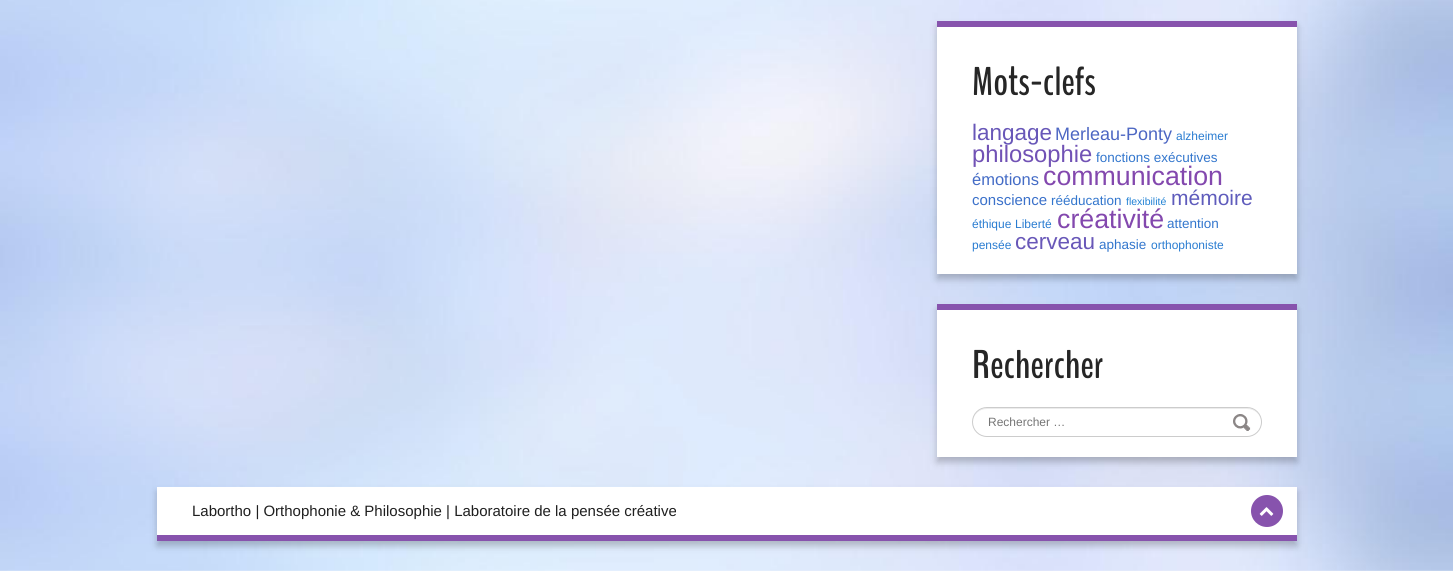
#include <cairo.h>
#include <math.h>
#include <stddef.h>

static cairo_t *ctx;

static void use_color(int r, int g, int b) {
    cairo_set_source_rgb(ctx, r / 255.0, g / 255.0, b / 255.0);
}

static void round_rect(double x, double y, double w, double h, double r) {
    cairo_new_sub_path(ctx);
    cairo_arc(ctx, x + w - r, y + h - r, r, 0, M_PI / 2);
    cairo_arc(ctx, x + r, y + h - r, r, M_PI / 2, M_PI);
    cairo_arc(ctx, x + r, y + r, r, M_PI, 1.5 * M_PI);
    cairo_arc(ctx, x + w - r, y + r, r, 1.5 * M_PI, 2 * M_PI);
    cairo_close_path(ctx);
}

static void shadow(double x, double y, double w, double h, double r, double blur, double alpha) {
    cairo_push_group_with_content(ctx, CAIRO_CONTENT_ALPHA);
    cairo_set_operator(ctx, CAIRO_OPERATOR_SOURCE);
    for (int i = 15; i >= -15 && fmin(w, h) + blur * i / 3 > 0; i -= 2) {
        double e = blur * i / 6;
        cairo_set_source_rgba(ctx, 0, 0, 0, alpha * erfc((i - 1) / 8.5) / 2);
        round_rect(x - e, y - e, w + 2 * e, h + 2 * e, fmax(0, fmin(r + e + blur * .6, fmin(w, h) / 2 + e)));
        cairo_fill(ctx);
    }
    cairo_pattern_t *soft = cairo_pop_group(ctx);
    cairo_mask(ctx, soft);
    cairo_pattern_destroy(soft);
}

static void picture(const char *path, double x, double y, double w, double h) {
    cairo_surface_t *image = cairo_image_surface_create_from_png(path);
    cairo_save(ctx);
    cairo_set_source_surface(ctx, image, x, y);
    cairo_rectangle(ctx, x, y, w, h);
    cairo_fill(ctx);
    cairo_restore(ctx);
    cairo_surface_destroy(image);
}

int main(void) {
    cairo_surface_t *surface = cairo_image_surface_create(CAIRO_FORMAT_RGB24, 1453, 571);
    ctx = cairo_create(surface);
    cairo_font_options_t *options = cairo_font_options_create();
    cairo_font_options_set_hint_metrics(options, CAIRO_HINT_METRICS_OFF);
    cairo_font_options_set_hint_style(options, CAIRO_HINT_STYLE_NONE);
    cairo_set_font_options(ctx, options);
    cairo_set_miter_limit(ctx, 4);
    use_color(255, 255, 255);
    cairo_paint(ctx);
    picture("img1.png", 0, 0, 1453, 571);
    use_color(0, 0, 0);
    shadow(937, 26, 360, 253, 0, 3.5, 0.22);
    use_color(255, 255, 255);
    cairo_rectangle(ctx, 937, 27, 360, 247);
    cairo_fill(ctx);
    use_color(135, 83, 173);
    cairo_rectangle(ctx, 937, 21, 360, 6);
    cairo_fill(ctx);
    cairo_select_font_face(ctx, "BenchNine", CAIRO_FONT_SLANT_NORMAL, CAIRO_FONT_WEIGHT_BOLD);
    cairo_set_font_size(ctx, 40);
    use_color(38, 38, 38);
    cairo_move_to(ctx, 972, 95);
    cairo_show_text(ctx, "Mots-clefs");
    cairo_select_font_face(ctx, "Liberation Sans", CAIRO_FONT_SLANT_NORMAL, CAIRO_FONT_WEIGHT_NORMAL);
    cairo_set_font_size(ctx, 22.5);
    use_color(104, 87, 184);
    cairo_move_to(ctx, 972, 140);
    cairo_show_text(ctx, "langage");
    cairo_set_font_size(ctx, 18);
    use_color(77, 103, 195);
    cairo_move_to(ctx, 1055, 140);
    cairo_show_text(ctx, "Merleau-Ponty");
    cairo_set_font_size(ctx, 12);
    use_color(41, 124, 209);
    cairo_move_to(ctx, 1176, 140);
    cairo_show_text(ctx, "alzheimer");
    cairo_set_font_size(ctx, 23.75);
    use_color(113, 82, 181);
    cairo_move_to(ctx, 972, 162);
    cairo_show_text(ctx, "philosophie");
    cairo_set_font_size(ctx, 13.5);
    use_color(50, 118, 205);
    cairo_move_to(ctx, 1096, 162);
    cairo_show_text(ctx, "fonctions exécutives");
    cairo_set_font_size(ctx, 16.5);
    use_color(68, 108, 198);
    cairo_move_to(ctx, 972, 185);
    cairo_show_text(ctx, "émotions");
    cairo_set_font_size(ctx, 26.75);
    use_color(131, 72, 174);
    cairo_move_to(ctx, 1043, 185);
    cairo_show_text(ctx, "communication");
    cairo_set_font_size(ctx, 15);
    use_color(59, 113, 202);
    cairo_move_to(ctx, 972, 205);
    cairo_show_text(ctx, "conscience");
    cairo_set_font_size(ctx, 13.5);
    use_color(50, 118, 205);
    cairo_move_to(ctx, 1051, 205);
    cairo_show_text(ctx, "rééducation");
    cairo_set_font_size(ctx, 10.5);
    use_color(32, 129, 212);
    cairo_move_to(ctx, 1126, 205);
    cairo_show_text(ctx, "flexibilité");
    cairo_set_font_size(ctx, 21);
    use_color(95, 92, 188);
    cairo_move_to(ctx, 1171, 205);
    cairo_show_text(ctx, "mémoire");
    cairo_set_font_size(ctx, 12);
    use_color(41, 124, 209);
    cairo_move_to(ctx, 972, 228);
    cairo_show_text(ctx, "éthique");
    cairo_move_to(ctx, 1015, 228);
    cairo_show_text(ctx, "Liberté");
    cairo_set_font_size(ctx, 26.75);
    use_color(131, 72, 174);
    cairo_move_to(ctx, 1057, 228);
    cairo_show_text(ctx, "créativité");
    cairo_set_font_size(ctx, 13.5);
    use_color(50, 118, 205);
    cairo_move_to(ctx, 1167, 228);
    cairo_show_text(ctx, "attention");
    cairo_set_font_size(ctx, 12);
    use_color(41, 124, 209);
    cairo_move_to(ctx, 972, 249);
    cairo_show_text(ctx, "pensée");
    cairo_set_font_size(ctx, 22.5);
    use_color(104, 87, 184);
    cairo_move_to(ctx, 1015, 249);
    cairo_show_text(ctx, "cerveau");
    cairo_set_font_size(ctx, 13.5);
    use_color(50, 118, 205);
    cairo_move_to(ctx, 1099, 249);
    cairo_show_text(ctx, "aphasie");
    cairo_set_font_size(ctx, 12);
    use_color(41, 124, 209);
    cairo_move_to(ctx, 1151, 249);
    cairo_show_text(ctx, "orthophoniste");
    use_color(0, 0, 0);
    shadow(937, 309, 360, 153, 0, 3.5, 0.22);
    use_color(255, 255, 255);
    cairo_rectangle(ctx, 937, 310, 360, 147);
    cairo_fill(ctx);
    use_color(135, 83, 173);
    cairo_rectangle(ctx, 937, 304, 360, 6);
    cairo_fill(ctx);
    cairo_select_font_face(ctx, "BenchNine", CAIRO_FONT_SLANT_NORMAL, CAIRO_FONT_WEIGHT_BOLD);
    cairo_set_font_size(ctx, 40);
    use_color(38, 38, 38);
    cairo_move_to(ctx, 972, 378);
    cairo_show_text(ctx, "Rechercher");
    use_color(236, 236, 236);
    cairo_new_path(ctx);
    cairo_move_to(ctx, 987, 409);
    cairo_line_to(ctx, 1247, 409);
    cairo_curve_to(ctx, 1255, 409, 1261, 415, 1261, 422);
    cairo_curve_to(ctx, 1261, 415, 1255, 408, 1247, 408);
    cairo_line_to(ctx, 987, 408);
    cairo_curve_to(ctx, 979, 408, 973, 415, 973, 422);
    cairo_curve_to(ctx, 973, 415, 979, 409, 987, 409);
    cairo_close_path(ctx);
    cairo_fill(ctx);
    round_rect(972.5, 407.5, 289, 29, 14.5);
    use_color(204, 204, 204);
    cairo_set_line_width(ctx, 1);
    cairo_stroke(ctx);
    cairo_select_font_face(ctx, "Liberation Sans", CAIRO_FONT_SLANT_NORMAL, CAIRO_FONT_WEIGHT_NORMAL);
    cairo_set_font_size(ctx, 12);
    use_color(117, 117, 117);
    cairo_move_to(ctx, 988, 426);
    cairo_show_text(ctx, "Rechercher …");
    picture("img2.png", 1233, 414, 18, 17);
    use_color(0, 0, 0);
    shadow(157, 492, 1140, 54, 0, 3.5, 0.22);
    use_color(255, 255, 255);
    cairo_rectangle(ctx, 157, 487, 1140, 48);
    cairo_fill(ctx);
    use_color(135, 83, 173);
    cairo_rectangle(ctx, 157, 535, 1140, 6);
    cairo_fill(ctx);
    cairo_set_font_size(ctx, 15);
    use_color(31, 31, 31);
    cairo_move_to(ctx, 192, 516);
    cairo_show_text(ctx, "Labortho | Orthophonie & Philosophie | Laboratoire de la pensée créative");
    use_color(135, 83, 173);
    cairo_new_path(ctx);
    cairo_arc(ctx, 1267, 511, 16, 0, 2 * M_PI);
    cairo_fill(ctx);
    picture("img3.png", 1259, 507, 15, 9);
    cairo_surface_write_to_png(surface, "result.png");
    cairo_font_options_destroy(options);
    cairo_destroy(ctx);
    cairo_surface_destroy(surface);
    return 0;
}
